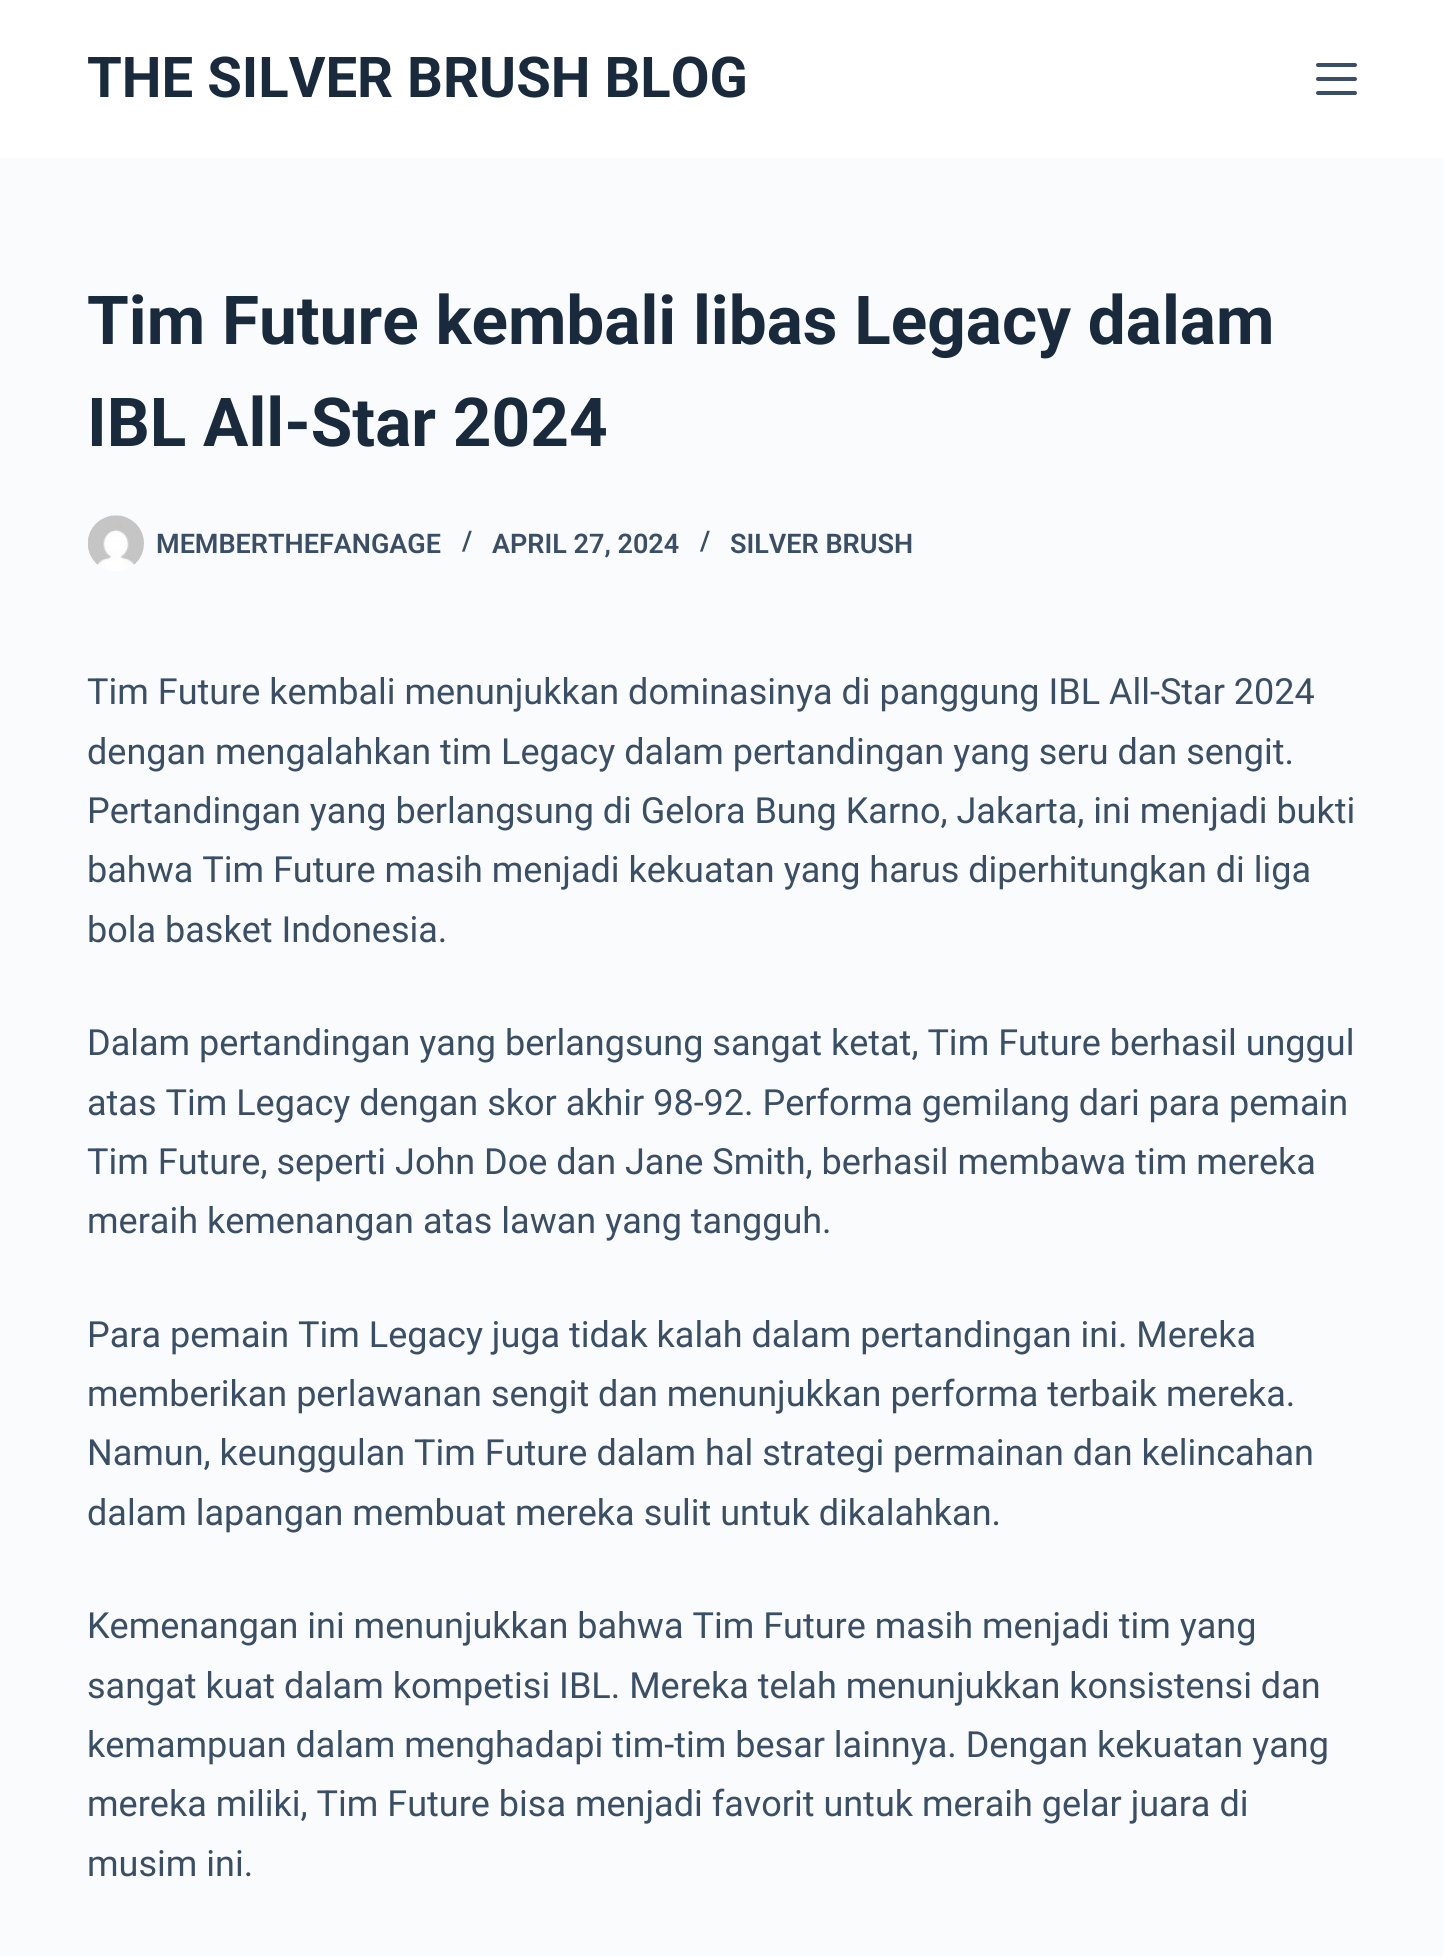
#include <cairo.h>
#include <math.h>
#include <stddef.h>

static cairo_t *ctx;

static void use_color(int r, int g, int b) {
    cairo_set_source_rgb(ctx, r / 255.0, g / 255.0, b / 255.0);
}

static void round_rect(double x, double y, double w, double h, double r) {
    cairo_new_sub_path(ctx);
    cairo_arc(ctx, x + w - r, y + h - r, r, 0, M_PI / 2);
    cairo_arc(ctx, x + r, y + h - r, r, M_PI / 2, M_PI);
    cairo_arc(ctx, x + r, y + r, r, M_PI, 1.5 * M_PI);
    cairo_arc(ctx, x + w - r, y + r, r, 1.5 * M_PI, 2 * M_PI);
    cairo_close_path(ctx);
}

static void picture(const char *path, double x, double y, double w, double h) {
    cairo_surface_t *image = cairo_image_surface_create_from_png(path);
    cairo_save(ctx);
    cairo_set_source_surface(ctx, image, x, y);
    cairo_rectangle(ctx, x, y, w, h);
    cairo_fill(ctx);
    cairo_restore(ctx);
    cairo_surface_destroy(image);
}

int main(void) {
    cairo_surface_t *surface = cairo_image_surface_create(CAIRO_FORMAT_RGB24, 1443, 1956);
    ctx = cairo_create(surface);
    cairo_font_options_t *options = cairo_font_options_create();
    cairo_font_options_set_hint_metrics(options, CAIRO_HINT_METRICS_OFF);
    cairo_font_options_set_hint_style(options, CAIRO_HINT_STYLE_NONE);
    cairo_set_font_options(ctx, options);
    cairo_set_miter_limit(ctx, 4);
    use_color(250, 251, 252);
    cairo_paint(ctx);
    use_color(255, 255, 255);
    cairo_rectangle(ctx, 0, 0, 1443, 158);
    cairo_fill(ctx);
    cairo_select_font_face(ctx, "Roboto", CAIRO_FONT_SLANT_NORMAL, CAIRO_FONT_WEIGHT_BOLD);
    cairo_set_font_size(ctx, 56.25);
    use_color(25, 42, 61);
    cairo_move_to(ctx, 87, 97);
    cairo_show_text(ctx, "THE SILVER BRUSH BLOG");
    use_color(58, 79, 102);
    round_rect(1316, 63, 41, 4, 2);
    cairo_fill(ctx);
    round_rect(1316, 77, 41, 4, 2);
    cairo_fill(ctx);
    round_rect(1316, 91, 41, 4, 2);
    cairo_fill(ctx);
    cairo_set_font_size(ctx, 67.5);
    use_color(25, 42, 61);
    cairo_move_to(ctx, 87, 344);
    cairo_show_text(ctx, "Tim Future kembali libas Legacy dalam");
    cairo_move_to(ctx, 87, 446);
    cairo_show_text(ctx, "IBL All-Star 2024");
    picture("img1.png", 88, 515, 56, 56);
    cairo_select_font_face(ctx, "Roboto SemiBold", CAIRO_FONT_SLANT_NORMAL, CAIRO_FONT_WEIGHT_NORMAL);
    cairo_set_font_size(ctx, 27);
    use_color(58, 79, 102);
    cairo_move_to(ctx, 156, 553);
    cairo_show_text(ctx, "MEMBERTHEFANGAGE");
    cairo_move_to(ctx, 462, 550);
    cairo_show_text(ctx, "/");
    cairo_move_to(ctx, 492, 553);
    cairo_show_text(ctx, "APRIL 27, 2024");
    cairo_move_to(ctx, 700, 550);
    cairo_show_text(ctx, "/");
    cairo_move_to(ctx, 730, 553);
    cairo_show_text(ctx, "SILVER BRUSH");
    cairo_select_font_face(ctx, "Roboto", CAIRO_FONT_SLANT_NORMAL, CAIRO_FONT_WEIGHT_NORMAL);
    cairo_set_font_size(ctx, 36);
    cairo_move_to(ctx, 87, 704);
    cairo_show_text(ctx, "Tim Future kembali menunjukkan dominasinya di panggung IBL All-Star 2024");
    cairo_move_to(ctx, 87, 764);
    cairo_show_text(ctx, "dengan mengalahkan tim Legacy dalam pertandingan yang seru dan sengit.");
    cairo_move_to(ctx, 87, 823);
    cairo_show_text(ctx, "Pertandingan yang berlangsung di Gelora Bung Karno, Jakarta, ini menjadi bukti");
    cairo_move_to(ctx, 87, 882);
    cairo_show_text(ctx, "bahwa Tim Future masih menjadi kekuatan yang harus diperhitungkan di liga");
    cairo_move_to(ctx, 87, 942);
    cairo_show_text(ctx, "bola basket Indonesia.");
    cairo_move_to(ctx, 87, 1055);
    cairo_show_text(ctx, "Dalam pertandingan yang berlangsung sangat ketat, Tim Future berhasil unggul");
    cairo_move_to(ctx, 87, 1115);
    cairo_show_text(ctx, "atas Tim Legacy dengan skor akhir 98-92. Performa gemilang dari para pemain");
    cairo_move_to(ctx, 87, 1174);
    cairo_show_text(ctx, "Tim Future, seperti John Doe dan Jane Smith, berhasil membawa tim mereka");
    cairo_move_to(ctx, 87, 1233);
    cairo_show_text(ctx, "meraih kemenangan atas lawan yang tangguh.");
    cairo_move_to(ctx, 87, 1347);
    cairo_show_text(ctx, "Para pemain Tim Legacy juga tidak kalah dalam pertandingan ini. Mereka");
    cairo_move_to(ctx, 87, 1406);
    cairo_show_text(ctx, "memberikan perlawanan sengit dan menunjukkan performa terbaik mereka.");
    cairo_move_to(ctx, 87, 1465);
    cairo_show_text(ctx, "Namun, keunggulan Tim Future dalam hal strategi permainan dan kelincahan");
    cairo_move_to(ctx, 87, 1525);
    cairo_show_text(ctx, "dalam lapangan membuat mereka sulit untuk dikalahkan.");
    cairo_move_to(ctx, 87, 1638);
    cairo_show_text(ctx, "Kemenangan ini menunjukkan bahwa Tim Future masih menjadi tim yang");
    cairo_move_to(ctx, 87, 1698);
    cairo_show_text(ctx, "sangat kuat dalam kompetisi IBL. Mereka telah menunjukkan konsistensi dan");
    cairo_move_to(ctx, 87, 1757);
    cairo_show_text(ctx, "kemampuan dalam menghadapi tim-tim besar lainnya. Dengan kekuatan yang");
    cairo_move_to(ctx, 87, 1816);
    cairo_show_text(ctx, "mereka miliki, Tim Future bisa menjadi favorit untuk meraih gelar juara di");
    cairo_move_to(ctx, 87, 1876);
    cairo_show_text(ctx, "musim ini.");
    cairo_surface_write_to_png(surface, "result.png");
    cairo_font_options_destroy(options);
    cairo_destroy(ctx);
    cairo_surface_destroy(surface);
    return 0;
}
